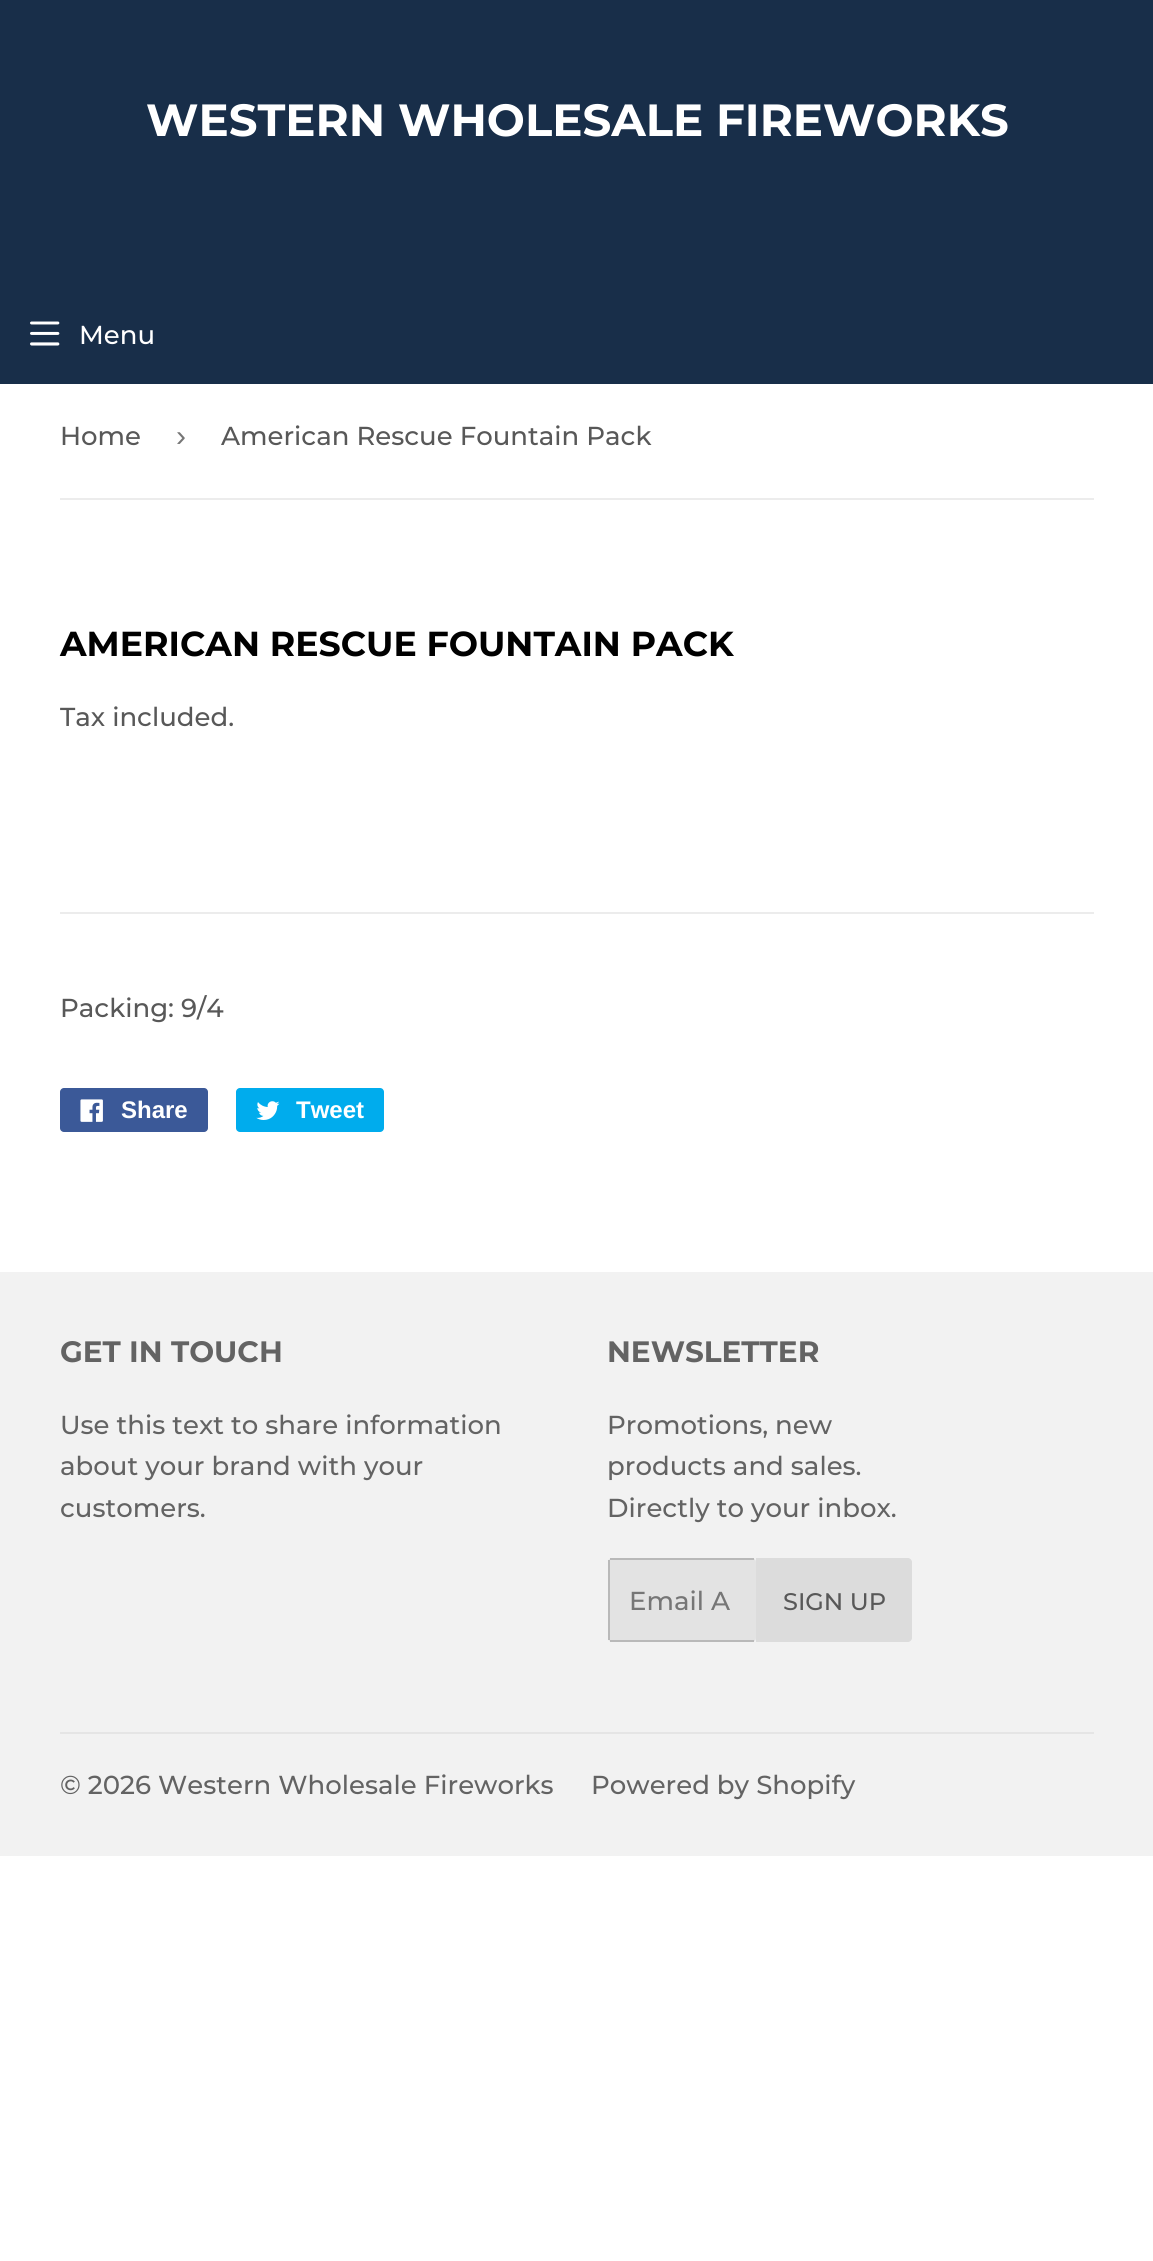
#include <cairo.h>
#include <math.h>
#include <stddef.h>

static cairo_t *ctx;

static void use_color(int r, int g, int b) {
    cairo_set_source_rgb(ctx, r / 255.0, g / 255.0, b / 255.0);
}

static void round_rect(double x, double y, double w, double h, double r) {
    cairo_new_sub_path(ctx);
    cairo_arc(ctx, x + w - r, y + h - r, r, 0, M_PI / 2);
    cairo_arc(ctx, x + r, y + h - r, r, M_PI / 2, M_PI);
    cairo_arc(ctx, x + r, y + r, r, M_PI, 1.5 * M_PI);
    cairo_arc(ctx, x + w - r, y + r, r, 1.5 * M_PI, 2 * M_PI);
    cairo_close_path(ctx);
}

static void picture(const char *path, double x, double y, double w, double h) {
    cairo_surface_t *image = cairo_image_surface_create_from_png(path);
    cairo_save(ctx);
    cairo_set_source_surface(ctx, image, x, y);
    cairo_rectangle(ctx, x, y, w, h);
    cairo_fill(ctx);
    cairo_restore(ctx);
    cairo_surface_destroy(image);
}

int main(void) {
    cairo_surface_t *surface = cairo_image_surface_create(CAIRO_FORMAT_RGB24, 1153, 2261);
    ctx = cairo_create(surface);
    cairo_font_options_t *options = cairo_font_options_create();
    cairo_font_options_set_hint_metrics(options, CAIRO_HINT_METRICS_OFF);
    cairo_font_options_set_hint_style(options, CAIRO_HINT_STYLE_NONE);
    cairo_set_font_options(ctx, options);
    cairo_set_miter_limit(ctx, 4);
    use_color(255, 255, 255);
    cairo_paint(ctx);
    use_color(24, 46, 73);
    cairo_rectangle(ctx, 0, 0, 1153, 384);
    cairo_fill(ctx);
    cairo_select_font_face(ctx, "Montserrat", CAIRO_FONT_SLANT_NORMAL, CAIRO_FONT_WEIGHT_BOLD);
    cairo_set_font_size(ctx, 45.1);
    use_color(255, 255, 255);
    cairo_move_to(ctx, 146, 136);
    cairo_show_text(ctx, "WESTERN WHOLESALE FIREWORKS");
    picture("img1.png", 30, 321, 30, 25);
    cairo_select_font_face(ctx, "Montserrat Medium", CAIRO_FONT_SLANT_NORMAL, CAIRO_FONT_WEIGHT_NORMAL);
    cairo_set_font_size(ctx, 26);
    cairo_move_to(ctx, 79, 344);
    cairo_show_text(ctx, "Menu");
    use_color(236, 236, 236);
    cairo_rectangle(ctx, 60, 498, 1034, 2);
    cairo_fill(ctx);
    use_color(88, 88, 88);
    cairo_move_to(ctx, 60, 445);
    cairo_show_text(ctx, "Home");
    cairo_select_font_face(ctx, "Liberation Sans", CAIRO_FONT_SLANT_NORMAL, CAIRO_FONT_WEIGHT_NORMAL);
    cairo_set_font_size(ctx, 30);
    use_color(118, 118, 118);
    cairo_move_to(ctx, 176, 446);
    cairo_show_text(ctx, "›");
    cairo_select_font_face(ctx, "Montserrat Medium", CAIRO_FONT_SLANT_NORMAL, CAIRO_FONT_WEIGHT_NORMAL);
    cairo_set_font_size(ctx, 26);
    use_color(88, 88, 88);
    cairo_move_to(ctx, 221, 445);
    cairo_show_text(ctx, "American Rescue Fountain Pack");
    cairo_select_font_face(ctx, "Montserrat", CAIRO_FONT_SLANT_NORMAL, CAIRO_FONT_WEIGHT_BOLD);
    cairo_set_font_size(ctx, 34.7);
    use_color(0, 0, 0);
    cairo_move_to(ctx, 60, 656);
    cairo_show_text(ctx, "AMERICAN RESCUE FOUNTAIN PACK");
    cairo_select_font_face(ctx, "Montserrat Medium", CAIRO_FONT_SLANT_NORMAL, CAIRO_FONT_WEIGHT_NORMAL);
    cairo_set_font_size(ctx, 26);
    use_color(88, 88, 88);
    cairo_move_to(ctx, 60, 726);
    cairo_show_text(ctx, "Tax included.");
    use_color(236, 236, 236);
    cairo_rectangle(ctx, 60, 912, 1034, 2);
    cairo_fill(ctx);
    use_color(88, 88, 88);
    cairo_move_to(ctx, 60, 1017);
    cairo_show_text(ctx, "Packing: 9/4");
    use_color(59, 89, 152);
    round_rect(60, 1088, 148, 44, 4);
    cairo_fill(ctx);
    picture("img2.png", 80, 1099, 23, 23);
    cairo_select_font_face(ctx, "Liberation Sans", CAIRO_FONT_SLANT_NORMAL, CAIRO_FONT_WEIGHT_BOLD);
    cairo_set_font_size(ctx, 24);
    use_color(255, 255, 255);
    cairo_move_to(ctx, 121, 1118);
    cairo_show_text(ctx, "Share");
    use_color(0, 172, 237);
    round_rect(236, 1088, 148, 44, 4);
    cairo_fill(ctx);
    picture("img3.png", 256, 1101, 24, 19);
    use_color(255, 255, 255);
    cairo_move_to(ctx, 296, 1118);
    cairo_show_text(ctx, "Tweet");
    use_color(242, 242, 242);
    cairo_rectangle(ctx, 0, 1272, 1153, 584);
    cairo_fill(ctx);
    cairo_select_font_face(ctx, "Montserrat", CAIRO_FONT_SLANT_NORMAL, CAIRO_FONT_WEIGHT_BOLD);
    cairo_set_font_size(ctx, 29.5);
    use_color(99, 99, 99);
    cairo_move_to(ctx, 60, 1362);
    cairo_show_text(ctx, "GET IN TOUCH");
    cairo_select_font_face(ctx, "Montserrat Medium", CAIRO_FONT_SLANT_NORMAL, CAIRO_FONT_WEIGHT_NORMAL);
    cairo_set_font_size(ctx, 26);
    cairo_move_to(ctx, 60, 1434);
    cairo_show_text(ctx, "Use this text to share information");
    cairo_move_to(ctx, 60, 1475);
    cairo_show_text(ctx, "about your brand with your");
    cairo_move_to(ctx, 60, 1517);
    cairo_show_text(ctx, "customers.");
    cairo_select_font_face(ctx, "Montserrat", CAIRO_FONT_SLANT_NORMAL, CAIRO_FONT_WEIGHT_BOLD);
    cairo_set_font_size(ctx, 29.5);
    cairo_move_to(ctx, 607, 1362);
    cairo_show_text(ctx, "NEWSLETTER");
    cairo_select_font_face(ctx, "Montserrat Medium", CAIRO_FONT_SLANT_NORMAL, CAIRO_FONT_WEIGHT_NORMAL);
    cairo_set_font_size(ctx, 26);
    cairo_move_to(ctx, 607, 1434);
    cairo_show_text(ctx, "Promotions, new");
    cairo_move_to(ctx, 607, 1475);
    cairo_show_text(ctx, "products and sales.");
    cairo_move_to(ctx, 607, 1517);
    cairo_show_text(ctx, "Directly to your inbox.");
    use_color(227, 227, 227);
    round_rect(608, 1558, 148, 84, 4);
    cairo_fill(ctx);
    use_color(185, 185, 185);
    cairo_rectangle(ctx, 610, 1558, 144, 2);
    cairo_fill(ctx);
    cairo_rectangle(ctx, 610, 1640, 144, 2);
    cairo_fill(ctx);
    cairo_rectangle(ctx, 608, 1560, 2, 80);
    cairo_fill(ctx);
    use_color(118, 118, 118);
    cairo_move_to(ctx, 629, 1610);
    cairo_show_text(ctx, "Email A");
    use_color(220, 220, 220);
    cairo_new_path(ctx);
    cairo_move_to(ctx, 756, 1558);
    cairo_line_to(ctx, 908, 1558);
    cairo_curve_to(ctx, 910, 1558, 912, 1560, 912, 1562);
    cairo_line_to(ctx, 912, 1638);
    cairo_curve_to(ctx, 912, 1640, 910, 1642, 908, 1642);
    cairo_line_to(ctx, 756, 1642);
    cairo_close_path(ctx);
    cairo_fill(ctx);
    cairo_set_font_size(ctx, 24);
    use_color(88, 88, 88);
    cairo_move_to(ctx, 783, 1610);
    cairo_show_text(ctx, "SIGN UP");
    use_color(229, 229, 229);
    cairo_rectangle(ctx, 60, 1732, 1034, 2);
    cairo_fill(ctx);
    cairo_set_font_size(ctx, 26);
    use_color(99, 99, 99);
    cairo_move_to(ctx, 60, 1794);
    cairo_show_text(ctx, "© 2026 Western Wholesale Fireworks");
    cairo_move_to(ctx, 591, 1794);
    cairo_show_text(ctx, "Powered by Shopify");
    cairo_surface_write_to_png(surface, "result.png");
    cairo_font_options_destroy(options);
    cairo_destroy(ctx);
    cairo_surface_destroy(surface);
    return 0;
}
